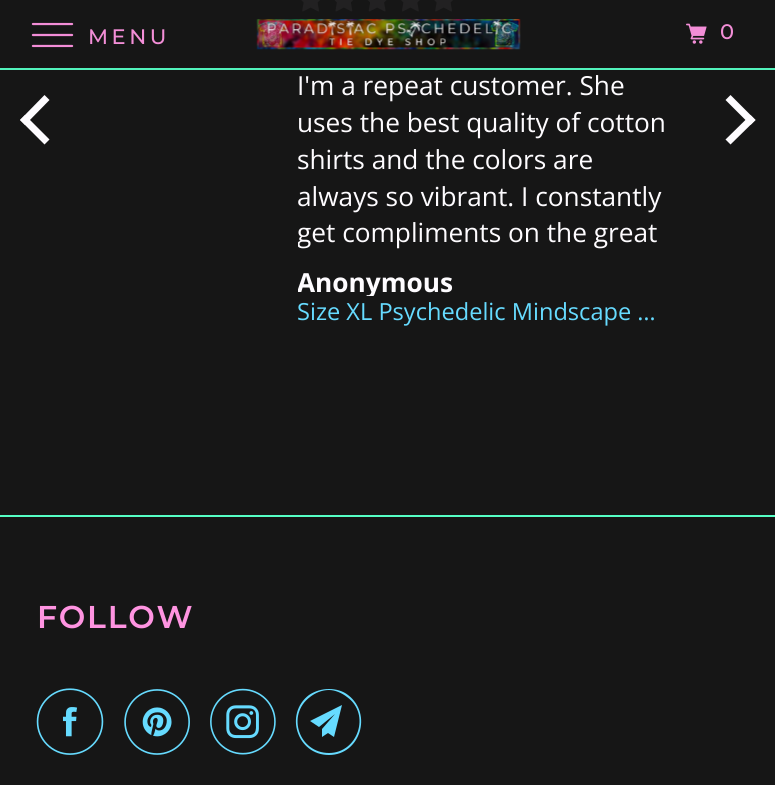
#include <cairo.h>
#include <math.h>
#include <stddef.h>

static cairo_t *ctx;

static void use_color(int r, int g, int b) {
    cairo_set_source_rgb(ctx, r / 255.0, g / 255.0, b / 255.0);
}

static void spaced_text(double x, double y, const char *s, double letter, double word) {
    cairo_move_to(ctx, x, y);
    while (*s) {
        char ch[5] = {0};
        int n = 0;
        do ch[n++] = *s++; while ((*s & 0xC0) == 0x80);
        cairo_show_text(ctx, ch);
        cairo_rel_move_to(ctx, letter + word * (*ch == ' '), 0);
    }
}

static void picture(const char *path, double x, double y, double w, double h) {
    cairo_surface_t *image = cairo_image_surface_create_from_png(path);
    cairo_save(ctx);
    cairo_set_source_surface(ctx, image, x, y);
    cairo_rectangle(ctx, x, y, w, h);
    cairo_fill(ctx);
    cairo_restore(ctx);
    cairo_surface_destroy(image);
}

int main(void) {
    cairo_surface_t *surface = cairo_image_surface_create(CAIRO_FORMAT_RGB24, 775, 785);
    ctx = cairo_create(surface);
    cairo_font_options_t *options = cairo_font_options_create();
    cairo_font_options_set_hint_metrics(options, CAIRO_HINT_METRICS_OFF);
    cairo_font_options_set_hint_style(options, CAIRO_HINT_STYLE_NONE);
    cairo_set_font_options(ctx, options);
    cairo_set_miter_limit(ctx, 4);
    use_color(22, 22, 22);
    cairo_paint(ctx);
    use_color(82, 243, 188);
    cairo_rectangle(ctx, 0, 68, 775, 2);
    cairo_fill(ctx);
    picture("img1.png", 31, 22, 43, 26);
    cairo_select_font_face(ctx, "Montserrat Medium", CAIRO_FONT_SLANT_NORMAL, CAIRO_FONT_WEIGHT_NORMAL);
    cairo_set_font_size(ctx, 21);
    use_color(243, 142, 215);
    spaced_text(88, 44, "MENU", 3.5, 0);
    picture("img2.png", 256, 19, 265, 31);
    picture("img3.png", 686, 23, 21, 21);
    spaced_text(720, 39, "0", 3.5, 0);
    picture("img4.png", 301, 0, 19, 12);
    picture("img5.png", 334, 0, 20, 12);
    picture("img6.png", 367, 0, 20, 12);
    picture("img7.png", 401, 0, 19, 12);
    picture("img4.png", 434, 0, 19, 12);
    cairo_select_font_face(ctx, "Open Sans", CAIRO_FONT_SLANT_NORMAL, CAIRO_FONT_WEIGHT_NORMAL);
    cairo_set_font_size(ctx, 26.25);
    use_color(254, 252, 255);
    cairo_move_to(ctx, 297, 95);
    cairo_show_text(ctx, "I'm a repeat customer. She");
    cairo_move_to(ctx, 297, 132);
    cairo_show_text(ctx, "uses the best quality of cotton");
    cairo_move_to(ctx, 297, 169);
    cairo_show_text(ctx, "shirts and the colors are");
    cairo_move_to(ctx, 297, 206);
    cairo_show_text(ctx, "always so vibrant. I constantly");
    cairo_save(ctx);
    cairo_rectangle(ctx, 298, 0, 371, 259);
    cairo_clip(ctx);
    cairo_move_to(ctx, 297, 242);
    cairo_show_text(ctx, "get compliments on the great");
    cairo_restore(ctx);
    cairo_save(ctx);
    cairo_rectangle(ctx, 298, 270, 371, 26);
    cairo_clip(ctx);
    cairo_select_font_face(ctx, "Open Sans", CAIRO_FONT_SLANT_NORMAL, CAIRO_FONT_WEIGHT_BOLD);
    cairo_move_to(ctx, 297, 292);
    cairo_show_text(ctx, "Anonymous");
    cairo_restore(ctx);
    cairo_set_font_size(ctx, 23.6);
    use_color(102, 219, 255);
    cairo_move_to(ctx, 297, 320);
    cairo_show_text(ctx, "Size XL Psychedelic Mindscape …");
    use_color(254, 252, 255);
    cairo_new_path(ctx);
    cairo_move_to(ctx, 20, 120);
    cairo_line_to(ctx, 44.5, 95);
    cairo_line_to(ctx, 49.5, 100);
    cairo_line_to(ctx, 25, 125);
    cairo_close_path(ctx);
    cairo_fill(ctx);
    cairo_new_path(ctx);
    cairo_move_to(ctx, 20, 120);
    cairo_line_to(ctx, 25, 115);
    cairo_line_to(ctx, 49.5, 139.5);
    cairo_line_to(ctx, 44.5, 144.5);
    cairo_close_path(ctx);
    cairo_fill(ctx);
    cairo_new_path(ctx);
    cairo_move_to(ctx, 725.5, 100);
    cairo_line_to(ctx, 730.5, 95);
    cairo_line_to(ctx, 755.5, 120);
    cairo_line_to(ctx, 750.5, 125);
    cairo_close_path(ctx);
    cairo_fill(ctx);
    cairo_new_path(ctx);
    cairo_move_to(ctx, 725.5, 139.5);
    cairo_line_to(ctx, 750.5, 115);
    cairo_line_to(ctx, 755.5, 120);
    cairo_line_to(ctx, 730.5, 144.5);
    cairo_close_path(ctx);
    cairo_fill(ctx);
    use_color(85, 255, 197);
    cairo_rectangle(ctx, 0, 515, 775, 2);
    cairo_fill(ctx);
    cairo_select_font_face(ctx, "Montserrat SemiBold", CAIRO_FONT_SLANT_NORMAL, CAIRO_FONT_WEIGHT_NORMAL);
    cairo_set_font_size(ctx, 31.5);
    use_color(255, 148, 225);
    spaced_text(37, 628, "FOLLOW", 1.75, 0);
    picture("img8.png", 36, 688, 68, 67);
    picture("img9.png", 124, 689, 66, 66);
    picture("img10.png", 210, 688, 66, 67);
    use_color(102, 219, 255);
    cairo_new_path(ctx);
    cairo_move_to(ctx, 334, 737);
    cairo_line_to(ctx, 328, 733);
    cairo_line_to(ctx, 322, 737);
    cairo_line_to(ctx, 322, 729);
    cairo_line_to(ctx, 335, 714);
    cairo_line_to(ctx, 319, 727);
    cairo_line_to(ctx, 310, 721);
    cairo_line_to(ctx, 342, 705);
    cairo_close_path(ctx);
    cairo_move_to(ctx, 329, 690);
    cairo_curve_to(ctx, 322, 690, 315, 693, 310, 697);
    cairo_curve_to(ctx, 286, 715, 299, 753, 329, 753);
    cairo_curve_to(ctx, 358, 753, 371, 714, 347, 697);
    cairo_curve_to(ctx, 342, 693, 335, 690, 329, 690);
    cairo_close_path(ctx);
    cairo_move_to(ctx, 329, 755);
    cairo_curve_to(ctx, 297, 755, 284, 714, 309, 695);
    cairo_curve_to(ctx, 315, 691, 322, 689, 329, 689);
    cairo_curve_to(ctx, 336, 689, 343, 691, 348, 695);
    cairo_curve_to(ctx, 373, 714, 360, 755, 329, 755);
    cairo_close_path(ctx);
    cairo_fill(ctx);
    cairo_surface_write_to_png(surface, "result.png");
    cairo_font_options_destroy(options);
    cairo_destroy(ctx);
    cairo_surface_destroy(surface);
    return 0;
}
